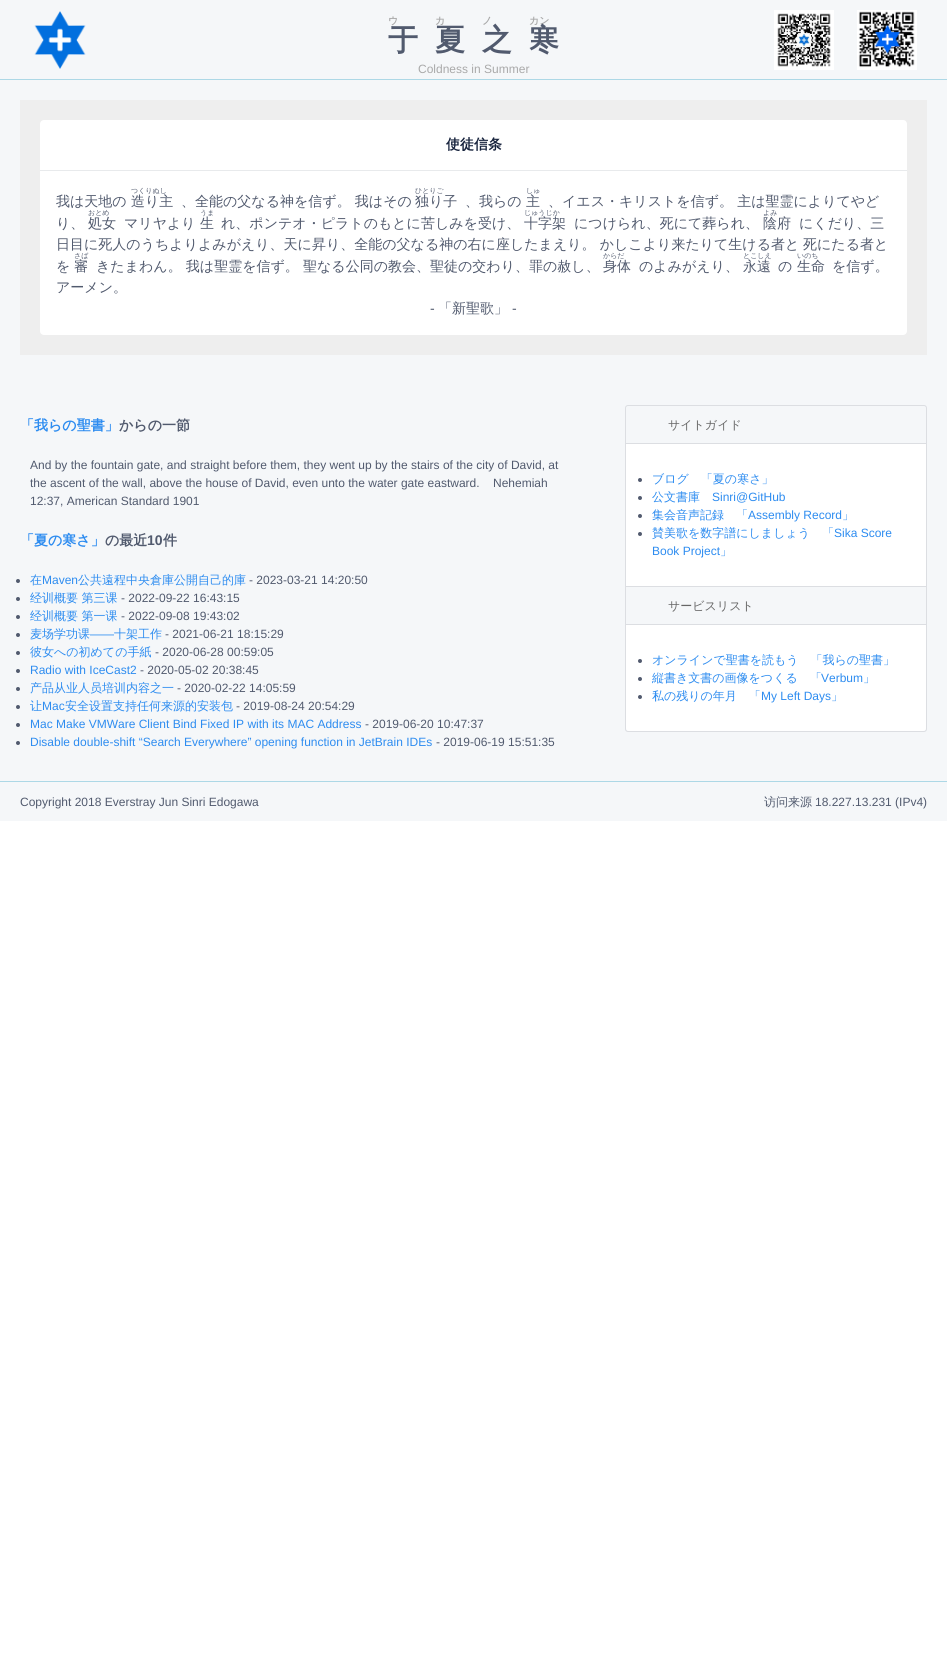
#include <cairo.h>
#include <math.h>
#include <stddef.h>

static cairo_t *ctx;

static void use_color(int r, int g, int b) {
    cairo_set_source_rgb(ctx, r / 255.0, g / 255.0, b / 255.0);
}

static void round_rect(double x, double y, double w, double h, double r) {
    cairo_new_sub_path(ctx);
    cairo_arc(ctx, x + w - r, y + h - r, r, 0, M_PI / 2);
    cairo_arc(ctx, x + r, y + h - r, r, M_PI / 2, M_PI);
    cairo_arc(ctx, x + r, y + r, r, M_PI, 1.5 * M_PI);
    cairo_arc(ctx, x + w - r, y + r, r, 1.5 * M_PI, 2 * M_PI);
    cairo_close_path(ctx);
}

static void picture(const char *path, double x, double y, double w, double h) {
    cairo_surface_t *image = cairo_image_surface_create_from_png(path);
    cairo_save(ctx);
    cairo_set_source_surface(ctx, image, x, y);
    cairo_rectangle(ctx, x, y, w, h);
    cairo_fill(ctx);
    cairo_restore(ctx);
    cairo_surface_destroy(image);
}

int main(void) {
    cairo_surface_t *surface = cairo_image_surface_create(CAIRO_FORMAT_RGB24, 947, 1654);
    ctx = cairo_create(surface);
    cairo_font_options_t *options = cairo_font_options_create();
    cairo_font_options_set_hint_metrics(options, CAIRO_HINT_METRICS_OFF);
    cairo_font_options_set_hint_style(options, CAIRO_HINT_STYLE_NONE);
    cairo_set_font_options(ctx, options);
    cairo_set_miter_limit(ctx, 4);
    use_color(255, 255, 255);
    cairo_paint(ctx);
    use_color(245, 247, 249);
    cairo_rectangle(ctx, 0, 0, 947, 821);
    cairo_fill(ctx);
    use_color(173, 216, 230);
    cairo_rectangle(ctx, 0, 79, 947, 1);
    cairo_fill(ctx);
    picture("img1.png", 34, 11, 52, 58);
    cairo_select_font_face(ctx, "WenQuanYi Zen Hei", CAIRO_FONT_SLANT_NORMAL, CAIRO_FONT_WEIGHT_BOLD);
    cairo_set_font_size(ctx, 10);
    use_color(169, 169, 169);
    cairo_move_to(ctx, 388, 24);
    cairo_show_text(ctx, "ウ");
    cairo_set_font_size(ctx, 30);
    use_color(81, 90, 110);
    cairo_move_to(ctx, 388, 50);
    cairo_show_text(ctx, "于");
    cairo_set_font_size(ctx, 10);
    use_color(169, 169, 169);
    cairo_move_to(ctx, 435, 24);
    cairo_show_text(ctx, "カ");
    cairo_set_font_size(ctx, 30);
    use_color(81, 90, 110);
    cairo_move_to(ctx, 435, 50);
    cairo_show_text(ctx, "夏");
    cairo_set_font_size(ctx, 10);
    use_color(169, 169, 169);
    cairo_move_to(ctx, 482, 24);
    cairo_show_text(ctx, "ノ");
    cairo_set_font_size(ctx, 30);
    use_color(81, 90, 110);
    cairo_move_to(ctx, 482, 50);
    cairo_show_text(ctx, "之");
    cairo_set_font_size(ctx, 10);
    use_color(169, 169, 169);
    cairo_move_to(ctx, 529, 24);
    cairo_show_text(ctx, "カン");
    cairo_set_font_size(ctx, 30);
    use_color(81, 90, 110);
    cairo_move_to(ctx, 529, 50);
    cairo_show_text(ctx, "寒");
    cairo_select_font_face(ctx, "Liberation Sans", CAIRO_FONT_SLANT_NORMAL, CAIRO_FONT_WEIGHT_NORMAL);
    cairo_set_font_size(ctx, 12);
    use_color(169, 169, 169);
    cairo_move_to(ctx, 418, 73);
    cairo_show_text(ctx, "Coldness in Summer");
    picture("img2.png", 774, 10, 60, 60);
    picture("img3.png", 857, 10, 60, 60);
    use_color(238, 238, 238);
    cairo_rectangle(ctx, 20, 100, 907, 255);
    cairo_fill(ctx);
    use_color(255, 255, 255);
    round_rect(40, 120, 867, 215, 4);
    cairo_fill(ctx);
    use_color(232, 234, 236);
    cairo_rectangle(ctx, 40, 170, 867, 1);
    cairo_fill(ctx);
    cairo_select_font_face(ctx, "WenQuanYi Zen Hei", CAIRO_FONT_SLANT_NORMAL, CAIRO_FONT_WEIGHT_BOLD);
    cairo_set_font_size(ctx, 14);
    use_color(23, 35, 61);
    cairo_move_to(ctx, 446, 149);
    cairo_show_text(ctx, "使徒信条");
    cairo_select_font_face(ctx, "WenQuanYi Zen Hei Medium", CAIRO_FONT_SLANT_NORMAL, CAIRO_FONT_WEIGHT_NORMAL);
    use_color(81, 90, 110);
    cairo_move_to(ctx, 56, 206);
    cairo_show_text(ctx, "我は天地の");
    cairo_set_font_size(ctx, 7);
    cairo_move_to(ctx, 131, 193);
    cairo_show_text(ctx, "つくりぬし");
    cairo_set_font_size(ctx, 14);
    cairo_move_to(ctx, 131, 206);
    cairo_show_text(ctx, "造り主");
    cairo_move_to(ctx, 181, 206);
    cairo_show_text(ctx, "、全能の父なる神を信ず。 我はその");
    cairo_set_font_size(ctx, 7);
    cairo_move_to(ctx, 415, 193);
    cairo_show_text(ctx, "ひとりご");
    cairo_set_font_size(ctx, 14);
    cairo_move_to(ctx, 415, 206);
    cairo_show_text(ctx, "独り子");
    cairo_move_to(ctx, 465, 206);
    cairo_show_text(ctx, "、我らの");
    cairo_set_font_size(ctx, 7);
    cairo_move_to(ctx, 526, 193);
    cairo_show_text(ctx, "しゅ");
    cairo_set_font_size(ctx, 14);
    cairo_move_to(ctx, 526, 206);
    cairo_show_text(ctx, "主");
    cairo_move_to(ctx, 548, 206);
    cairo_show_text(ctx, "、イエス・キリストを信ず。 主は聖霊によりてやど");
    cairo_move_to(ctx, 56, 228);
    cairo_show_text(ctx, "り、");
    cairo_set_font_size(ctx, 7);
    cairo_move_to(ctx, 88, 215);
    cairo_show_text(ctx, "おとめ");
    cairo_set_font_size(ctx, 14);
    cairo_move_to(ctx, 88, 228);
    cairo_show_text(ctx, "処女");
    cairo_move_to(ctx, 124, 228);
    cairo_show_text(ctx, "マリヤより");
    cairo_set_font_size(ctx, 7);
    cairo_move_to(ctx, 200, 215);
    cairo_show_text(ctx, "うま");
    cairo_set_font_size(ctx, 14);
    cairo_move_to(ctx, 200, 228);
    cairo_show_text(ctx, "生");
    cairo_move_to(ctx, 221, 228);
    cairo_show_text(ctx, "れ、ポンテオ・ピラトのもとに苦しみを受け、");
    cairo_set_font_size(ctx, 7);
    cairo_move_to(ctx, 524, 215);
    cairo_show_text(ctx, "じゅうじか");
    cairo_set_font_size(ctx, 14);
    cairo_move_to(ctx, 524, 228);
    cairo_show_text(ctx, "十字架");
    cairo_move_to(ctx, 574, 228);
    cairo_show_text(ctx, "につけられ、死にて葬られ、");
    cairo_set_font_size(ctx, 7);
    cairo_move_to(ctx, 763, 215);
    cairo_show_text(ctx, "よみ");
    cairo_set_font_size(ctx, 14);
    cairo_move_to(ctx, 763, 228);
    cairo_show_text(ctx, "陰府");
    cairo_move_to(ctx, 799, 228);
    cairo_show_text(ctx, "にくだり、三");
    cairo_move_to(ctx, 56, 249);
    cairo_show_text(ctx, "日目に死人のうちよりよみがえり、天に昇り、全能の父なる神の右に座したまえり。 かしこより来たりて生ける者と");
    cairo_move_to(ctx, 803, 249);
    cairo_show_text(ctx, "死にたる者と");
    cairo_move_to(ctx, 56, 271);
    cairo_show_text(ctx, "を");
    cairo_set_font_size(ctx, 7);
    cairo_move_to(ctx, 74, 258);
    cairo_show_text(ctx, "さば");
    cairo_set_font_size(ctx, 14);
    cairo_move_to(ctx, 74, 271);
    cairo_show_text(ctx, "審");
    cairo_move_to(ctx, 96, 271);
    cairo_show_text(ctx, "きたまわん。 我は聖霊を信ず。 聖なる公同の教会、聖徒の交わり、罪の赦し、");
    cairo_set_font_size(ctx, 7);
    cairo_move_to(ctx, 603, 258);
    cairo_show_text(ctx, "からだ");
    cairo_set_font_size(ctx, 14);
    cairo_move_to(ctx, 603, 271);
    cairo_show_text(ctx, "身体");
    cairo_move_to(ctx, 639, 271);
    cairo_show_text(ctx, "のよみがえり、");
    cairo_set_font_size(ctx, 7);
    cairo_move_to(ctx, 743, 258);
    cairo_show_text(ctx, "とこしえ");
    cairo_set_font_size(ctx, 14);
    cairo_move_to(ctx, 743, 271);
    cairo_show_text(ctx, "永遠");
    cairo_move_to(ctx, 778, 271);
    cairo_show_text(ctx, "の");
    cairo_set_font_size(ctx, 7);
    cairo_move_to(ctx, 797, 258);
    cairo_show_text(ctx, "いのち");
    cairo_set_font_size(ctx, 14);
    cairo_move_to(ctx, 797, 271);
    cairo_show_text(ctx, "生命");
    cairo_move_to(ctx, 832, 271);
    cairo_show_text(ctx, "を信ず。");
    cairo_move_to(ctx, 56, 292);
    cairo_show_text(ctx, "アーメン。");
    cairo_select_font_face(ctx, "Liberation Sans", CAIRO_FONT_SLANT_NORMAL, CAIRO_FONT_WEIGHT_NORMAL);
    cairo_move_to(ctx, 430, 313);
    cairo_show_text(ctx, "-");
    cairo_select_font_face(ctx, "WenQuanYi Zen Hei Medium", CAIRO_FONT_SLANT_NORMAL, CAIRO_FONT_WEIGHT_NORMAL);
    cairo_move_to(ctx, 438, 313);
    cairo_show_text(ctx, "「新聖歌」");
    cairo_select_font_face(ctx, "Liberation Sans", CAIRO_FONT_SLANT_NORMAL, CAIRO_FONT_WEIGHT_NORMAL);
    cairo_move_to(ctx, 512, 313);
    cairo_show_text(ctx, "-");
    cairo_select_font_face(ctx, "WenQuanYi Zen Hei", CAIRO_FONT_SLANT_NORMAL, CAIRO_FONT_WEIGHT_BOLD);
    use_color(45, 140, 240);
    cairo_move_to(ctx, 20, 430);
    cairo_show_text(ctx, "「我らの聖書」");
    use_color(81, 90, 110);
    cairo_move_to(ctx, 119, 430);
    cairo_show_text(ctx, "からの一節");
    cairo_select_font_face(ctx, "Liberation Sans", CAIRO_FONT_SLANT_NORMAL, CAIRO_FONT_WEIGHT_NORMAL);
    cairo_set_font_size(ctx, 12);
    cairo_move_to(ctx, 30, 469);
    cairo_show_text(ctx, "And by the fountain gate, and straight before them, they went up by the stairs of the city of David, at");
    cairo_move_to(ctx, 30, 487);
    cairo_show_text(ctx, "the ascent of the wall, above the house of David, even unto the water gate eastward.");
    cairo_move_to(ctx, 493, 487);
    cairo_show_text(ctx, "Nehemiah");
    cairo_move_to(ctx, 30, 505);
    cairo_show_text(ctx, "12:37, American Standard 1901");
    cairo_select_font_face(ctx, "WenQuanYi Zen Hei", CAIRO_FONT_SLANT_NORMAL, CAIRO_FONT_WEIGHT_BOLD);
    cairo_set_font_size(ctx, 14);
    use_color(45, 140, 240);
    cairo_move_to(ctx, 20, 545);
    cairo_show_text(ctx, "「夏の寒さ」");
    use_color(81, 90, 110);
    cairo_move_to(ctx, 105, 545);
    cairo_show_text(ctx, "の最近");
    cairo_select_font_face(ctx, "Liberation Sans", CAIRO_FONT_SLANT_NORMAL, CAIRO_FONT_WEIGHT_BOLD);
    cairo_move_to(ctx, 147, 545);
    cairo_show_text(ctx, "10");
    cairo_select_font_face(ctx, "WenQuanYi Zen Hei", CAIRO_FONT_SLANT_NORMAL, CAIRO_FONT_WEIGHT_BOLD);
    cairo_move_to(ctx, 163, 545);
    cairo_show_text(ctx, "件");
    cairo_new_path(ctx);
    cairo_arc(ctx, 18, 581, 2, 0, 2 * M_PI);
    cairo_fill(ctx);
    cairo_select_font_face(ctx, "WenQuanYi Zen Hei Medium", CAIRO_FONT_SLANT_NORMAL, CAIRO_FONT_WEIGHT_NORMAL);
    cairo_set_font_size(ctx, 12);
    use_color(45, 140, 240);
    cairo_move_to(ctx, 30, 584);
    cairo_show_text(ctx, "在");
    cairo_select_font_face(ctx, "Liberation Sans", CAIRO_FONT_SLANT_NORMAL, CAIRO_FONT_WEIGHT_NORMAL);
    cairo_move_to(ctx, 42, 584);
    cairo_show_text(ctx, "Maven");
    cairo_select_font_face(ctx, "WenQuanYi Zen Hei Medium", CAIRO_FONT_SLANT_NORMAL, CAIRO_FONT_WEIGHT_NORMAL);
    cairo_move_to(ctx, 78, 584);
    cairo_show_text(ctx, "公共遠程中央倉庫公開自己的庫");
    cairo_select_font_face(ctx, "Liberation Sans", CAIRO_FONT_SLANT_NORMAL, CAIRO_FONT_WEIGHT_NORMAL);
    use_color(81, 90, 110);
    cairo_move_to(ctx, 249, 584);
    cairo_show_text(ctx, "- 2023-03-21 14:20:50");
    cairo_new_path(ctx);
    cairo_arc(ctx, 18, 599, 2, 0, 2 * M_PI);
    cairo_fill(ctx);
    cairo_select_font_face(ctx, "WenQuanYi Zen Hei Medium", CAIRO_FONT_SLANT_NORMAL, CAIRO_FONT_WEIGHT_NORMAL);
    use_color(45, 140, 240);
    cairo_move_to(ctx, 30, 602);
    cairo_show_text(ctx, "经训概要 第三课");
    cairo_select_font_face(ctx, "Liberation Sans", CAIRO_FONT_SLANT_NORMAL, CAIRO_FONT_WEIGHT_NORMAL);
    use_color(81, 90, 110);
    cairo_move_to(ctx, 121, 602);
    cairo_show_text(ctx, "- 2022-09-22 16:43:15");
    cairo_new_path(ctx);
    cairo_arc(ctx, 18, 617, 2, 0, 2 * M_PI);
    cairo_fill(ctx);
    cairo_select_font_face(ctx, "WenQuanYi Zen Hei Medium", CAIRO_FONT_SLANT_NORMAL, CAIRO_FONT_WEIGHT_NORMAL);
    use_color(45, 140, 240);
    cairo_move_to(ctx, 30, 620);
    cairo_show_text(ctx, "经训概要 第一课");
    cairo_select_font_face(ctx, "Liberation Sans", CAIRO_FONT_SLANT_NORMAL, CAIRO_FONT_WEIGHT_NORMAL);
    use_color(81, 90, 110);
    cairo_move_to(ctx, 121, 620);
    cairo_show_text(ctx, "- 2022-09-08 19:43:02");
    cairo_new_path(ctx);
    cairo_arc(ctx, 18, 635, 2, 0, 2 * M_PI);
    cairo_fill(ctx);
    cairo_select_font_face(ctx, "WenQuanYi Zen Hei Medium", CAIRO_FONT_SLANT_NORMAL, CAIRO_FONT_WEIGHT_NORMAL);
    use_color(45, 140, 240);
    cairo_move_to(ctx, 30, 638);
    cairo_show_text(ctx, "麦场学功课");
    cairo_select_font_face(ctx, "Liberation Sans", CAIRO_FONT_SLANT_NORMAL, CAIRO_FONT_WEIGHT_NORMAL);
    cairo_move_to(ctx, 90, 638);
    cairo_show_text(ctx, "——");
    cairo_select_font_face(ctx, "WenQuanYi Zen Hei Medium", CAIRO_FONT_SLANT_NORMAL, CAIRO_FONT_WEIGHT_NORMAL);
    cairo_move_to(ctx, 114, 638);
    cairo_show_text(ctx, "十架工作");
    cairo_select_font_face(ctx, "Liberation Sans", CAIRO_FONT_SLANT_NORMAL, CAIRO_FONT_WEIGHT_NORMAL);
    use_color(81, 90, 110);
    cairo_move_to(ctx, 165, 638);
    cairo_show_text(ctx, "- 2021-06-21 18:15:29");
    cairo_new_path(ctx);
    cairo_arc(ctx, 18, 653, 2, 0, 2 * M_PI);
    cairo_fill(ctx);
    cairo_select_font_face(ctx, "WenQuanYi Zen Hei Medium", CAIRO_FONT_SLANT_NORMAL, CAIRO_FONT_WEIGHT_NORMAL);
    use_color(45, 140, 240);
    cairo_move_to(ctx, 30, 656);
    cairo_show_text(ctx, "彼女への初めての手紙");
    cairo_select_font_face(ctx, "Liberation Sans", CAIRO_FONT_SLANT_NORMAL, CAIRO_FONT_WEIGHT_NORMAL);
    use_color(81, 90, 110);
    cairo_move_to(ctx, 155, 656);
    cairo_show_text(ctx, "- 2020-06-28 00:59:05");
    cairo_new_path(ctx);
    cairo_arc(ctx, 18, 671, 2, 0, 2 * M_PI);
    cairo_fill(ctx);
    use_color(45, 140, 240);
    cairo_move_to(ctx, 30, 674);
    cairo_show_text(ctx, "Radio with IceCast2");
    use_color(81, 90, 110);
    cairo_move_to(ctx, 140, 674);
    cairo_show_text(ctx, "- 2020-05-02 20:38:45");
    cairo_new_path(ctx);
    cairo_arc(ctx, 18, 689, 2, 0, 2 * M_PI);
    cairo_fill(ctx);
    cairo_select_font_face(ctx, "WenQuanYi Zen Hei Medium", CAIRO_FONT_SLANT_NORMAL, CAIRO_FONT_WEIGHT_NORMAL);
    use_color(45, 140, 240);
    cairo_move_to(ctx, 30, 692);
    cairo_show_text(ctx, "产品从业人员培训内容之一");
    cairo_select_font_face(ctx, "Liberation Sans", CAIRO_FONT_SLANT_NORMAL, CAIRO_FONT_WEIGHT_NORMAL);
    use_color(81, 90, 110);
    cairo_move_to(ctx, 177, 692);
    cairo_show_text(ctx, "- 2020-02-22 14:05:59");
    cairo_new_path(ctx);
    cairo_arc(ctx, 18, 707, 2, 0, 2 * M_PI);
    cairo_fill(ctx);
    cairo_select_font_face(ctx, "WenQuanYi Zen Hei Medium", CAIRO_FONT_SLANT_NORMAL, CAIRO_FONT_WEIGHT_NORMAL);
    use_color(45, 140, 240);
    cairo_move_to(ctx, 30, 710);
    cairo_show_text(ctx, "让");
    cairo_select_font_face(ctx, "Liberation Sans", CAIRO_FONT_SLANT_NORMAL, CAIRO_FONT_WEIGHT_NORMAL);
    cairo_move_to(ctx, 42, 710);
    cairo_show_text(ctx, "Mac");
    cairo_select_font_face(ctx, "WenQuanYi Zen Hei Medium", CAIRO_FONT_SLANT_NORMAL, CAIRO_FONT_WEIGHT_NORMAL);
    cairo_move_to(ctx, 65, 710);
    cairo_show_text(ctx, "安全设置支持任何来源的安装包");
    cairo_select_font_face(ctx, "Liberation Sans", CAIRO_FONT_SLANT_NORMAL, CAIRO_FONT_WEIGHT_NORMAL);
    use_color(81, 90, 110);
    cairo_move_to(ctx, 236, 710);
    cairo_show_text(ctx, "- 2019-08-24 20:54:29");
    cairo_new_path(ctx);
    cairo_arc(ctx, 18, 725, 2, 0, 2 * M_PI);
    cairo_fill(ctx);
    use_color(45, 140, 240);
    cairo_move_to(ctx, 30, 728);
    cairo_show_text(ctx, "Mac Make VMWare Client Bind Fixed IP with its MAC Address");
    use_color(81, 90, 110);
    cairo_move_to(ctx, 365, 728);
    cairo_show_text(ctx, "- 2019-06-20 10:47:37");
    cairo_new_path(ctx);
    cairo_arc(ctx, 18, 743, 2, 0, 2 * M_PI);
    cairo_fill(ctx);
    use_color(45, 140, 240);
    cairo_move_to(ctx, 30, 746);
    cairo_show_text(ctx, "Disable double-shift “Search Everywhere” opening function in JetBrain IDEs");
    use_color(81, 90, 110);
    cairo_move_to(ctx, 436, 746);
    cairo_show_text(ctx, "- 2019-06-19 15:51:35");
    round_rect(625.5, 405.5, 301, 326, 2.5);
    use_color(220, 222, 226);
    cairo_set_line_width(ctx, 1);
    cairo_stroke(ctx);
    cairo_rectangle(ctx, 626, 443, 300, 1);
    cairo_fill(ctx);
    cairo_select_font_face(ctx, "WenQuanYi Zen Hei Medium", CAIRO_FONT_SLANT_NORMAL, CAIRO_FONT_WEIGHT_NORMAL);
    use_color(102, 102, 102);
    cairo_move_to(ctx, 668, 429);
    cairo_show_text(ctx, "サイトガイド");
    use_color(255, 255, 255);
    cairo_rectangle(ctx, 626, 444, 300, 142);
    cairo_fill(ctx);
    use_color(81, 90, 110);
    cairo_arc(ctx, 640, 480, 2, 0, 2 * M_PI);
    cairo_fill(ctx);
    use_color(45, 140, 240);
    cairo_move_to(ctx, 652, 483);
    cairo_show_text(ctx, "ブログ　「夏の寒さ」");
    use_color(81, 90, 110);
    cairo_new_path(ctx);
    cairo_arc(ctx, 640, 498, 2, 0, 2 * M_PI);
    cairo_fill(ctx);
    use_color(45, 140, 240);
    cairo_move_to(ctx, 652, 501);
    cairo_show_text(ctx, "公文書庫");
    cairo_select_font_face(ctx, "Liberation Sans", CAIRO_FONT_SLANT_NORMAL, CAIRO_FONT_WEIGHT_NORMAL);
    cairo_move_to(ctx, 712, 501);
    cairo_show_text(ctx, "Sinri@GitHub");
    use_color(81, 90, 110);
    cairo_new_path(ctx);
    cairo_arc(ctx, 640, 516, 2, 0, 2 * M_PI);
    cairo_fill(ctx);
    cairo_select_font_face(ctx, "WenQuanYi Zen Hei Medium", CAIRO_FONT_SLANT_NORMAL, CAIRO_FONT_WEIGHT_NORMAL);
    use_color(45, 140, 240);
    cairo_move_to(ctx, 652, 519);
    cairo_show_text(ctx, "集会音声記録　「");
    cairo_select_font_face(ctx, "Liberation Sans", CAIRO_FONT_SLANT_NORMAL, CAIRO_FONT_WEIGHT_NORMAL);
    cairo_move_to(ctx, 748, 519);
    cairo_show_text(ctx, "Assembly Record");
    cairo_select_font_face(ctx, "WenQuanYi Zen Hei Medium", CAIRO_FONT_SLANT_NORMAL, CAIRO_FONT_WEIGHT_NORMAL);
    cairo_move_to(ctx, 842, 519);
    cairo_show_text(ctx, "」");
    use_color(81, 90, 110);
    cairo_new_path(ctx);
    cairo_arc(ctx, 640, 534, 2, 0, 2 * M_PI);
    cairo_fill(ctx);
    use_color(45, 140, 240);
    cairo_move_to(ctx, 652, 537);
    cairo_show_text(ctx, "賛美歌を数字譜にしましょう　「");
    cairo_select_font_face(ctx, "Liberation Sans", CAIRO_FONT_SLANT_NORMAL, CAIRO_FONT_WEIGHT_NORMAL);
    cairo_move_to(ctx, 834, 537);
    cairo_show_text(ctx, "Sika Score");
    cairo_move_to(ctx, 652, 555);
    cairo_show_text(ctx, "Book Project");
    cairo_select_font_face(ctx, "WenQuanYi Zen Hei Medium", CAIRO_FONT_SLANT_NORMAL, CAIRO_FONT_WEIGHT_NORMAL);
    cairo_move_to(ctx, 720, 555);
    cairo_show_text(ctx, "」");
    use_color(220, 222, 226);
    cairo_rectangle(ctx, 626, 586, 300, 1);
    cairo_fill(ctx);
    cairo_rectangle(ctx, 626, 624, 300, 1);
    cairo_fill(ctx);
    use_color(102, 102, 102);
    cairo_move_to(ctx, 668, 610);
    cairo_show_text(ctx, "サービスリスト");
    use_color(255, 255, 255);
    cairo_new_path(ctx);
    cairo_move_to(ctx, 626, 625);
    cairo_line_to(ctx, 926, 625);
    cairo_line_to(ctx, 926, 728);
    cairo_curve_to(ctx, 926, 729.5, 924.5, 731, 923, 731);
    cairo_line_to(ctx, 629, 731);
    cairo_curve_to(ctx, 627.5, 731, 626, 729.5, 626, 728);
    cairo_close_path(ctx);
    cairo_fill(ctx);
    use_color(81, 90, 110);
    cairo_arc(ctx, 640, 661, 2, 0, 2 * M_PI);
    cairo_fill(ctx);
    use_color(45, 140, 240);
    cairo_move_to(ctx, 652, 664);
    cairo_show_text(ctx, "オンラインで聖書を読もう　「我らの聖書」");
    use_color(81, 90, 110);
    cairo_new_path(ctx);
    cairo_arc(ctx, 640, 679, 2, 0, 2 * M_PI);
    cairo_fill(ctx);
    use_color(45, 140, 240);
    cairo_move_to(ctx, 652, 682);
    cairo_show_text(ctx, "縦書き文書の画像をつくる　「");
    cairo_select_font_face(ctx, "Liberation Sans", CAIRO_FONT_SLANT_NORMAL, CAIRO_FONT_WEIGHT_NORMAL);
    cairo_move_to(ctx, 821, 682);
    cairo_show_text(ctx, "Verbum");
    cairo_select_font_face(ctx, "WenQuanYi Zen Hei Medium", CAIRO_FONT_SLANT_NORMAL, CAIRO_FONT_WEIGHT_NORMAL);
    cairo_move_to(ctx, 863, 682);
    cairo_show_text(ctx, "」");
    use_color(81, 90, 110);
    cairo_new_path(ctx);
    cairo_arc(ctx, 640, 697, 2, 0, 2 * M_PI);
    cairo_fill(ctx);
    use_color(45, 140, 240);
    cairo_move_to(ctx, 652, 700);
    cairo_show_text(ctx, "私の残りの年月　「");
    cairo_select_font_face(ctx, "Liberation Sans", CAIRO_FONT_SLANT_NORMAL, CAIRO_FONT_WEIGHT_NORMAL);
    cairo_move_to(ctx, 761, 700);
    cairo_show_text(ctx, "My Left Days");
    cairo_select_font_face(ctx, "WenQuanYi Zen Hei Medium", CAIRO_FONT_SLANT_NORMAL, CAIRO_FONT_WEIGHT_NORMAL);
    cairo_move_to(ctx, 831, 700);
    cairo_show_text(ctx, "」");
    use_color(173, 216, 230);
    cairo_rectangle(ctx, 0, 781, 947, 1);
    cairo_fill(ctx);
    cairo_select_font_face(ctx, "Liberation Sans", CAIRO_FONT_SLANT_NORMAL, CAIRO_FONT_WEIGHT_NORMAL);
    use_color(81, 90, 110);
    cairo_move_to(ctx, 20, 806);
    cairo_show_text(ctx, "Copyright 2018 Everstray Jun Sinri Edogawa");
    cairo_select_font_face(ctx, "WenQuanYi Zen Hei Medium", CAIRO_FONT_SLANT_NORMAL, CAIRO_FONT_WEIGHT_NORMAL);
    cairo_move_to(ctx, 764, 806);
    cairo_show_text(ctx, "访问来源");
    cairo_select_font_face(ctx, "Liberation Sans", CAIRO_FONT_SLANT_NORMAL, CAIRO_FONT_WEIGHT_NORMAL);
    cairo_move_to(ctx, 815, 806);
    cairo_show_text(ctx, "18.227.13.231 (IPv4)");
    cairo_surface_write_to_png(surface, "result.png");
    cairo_font_options_destroy(options);
    cairo_destroy(ctx);
    cairo_surface_destroy(surface);
    return 0;
}
